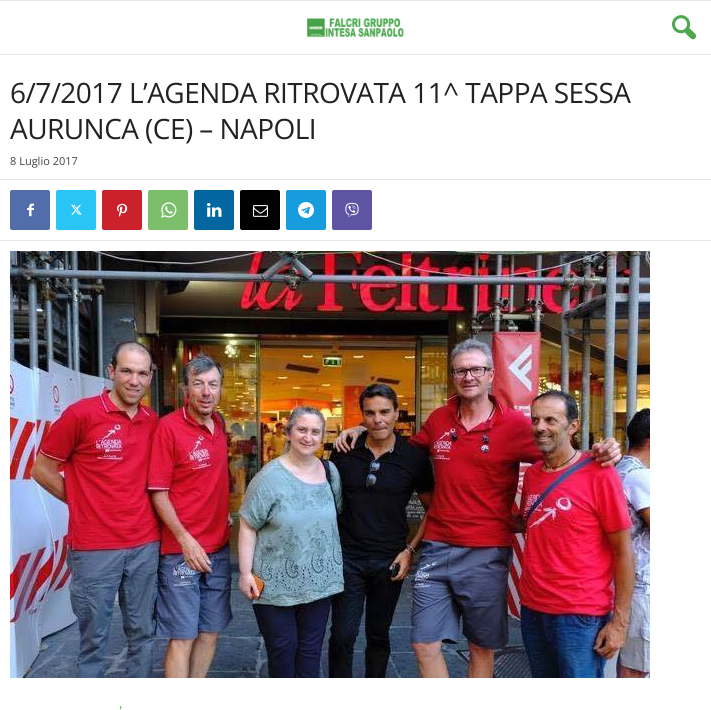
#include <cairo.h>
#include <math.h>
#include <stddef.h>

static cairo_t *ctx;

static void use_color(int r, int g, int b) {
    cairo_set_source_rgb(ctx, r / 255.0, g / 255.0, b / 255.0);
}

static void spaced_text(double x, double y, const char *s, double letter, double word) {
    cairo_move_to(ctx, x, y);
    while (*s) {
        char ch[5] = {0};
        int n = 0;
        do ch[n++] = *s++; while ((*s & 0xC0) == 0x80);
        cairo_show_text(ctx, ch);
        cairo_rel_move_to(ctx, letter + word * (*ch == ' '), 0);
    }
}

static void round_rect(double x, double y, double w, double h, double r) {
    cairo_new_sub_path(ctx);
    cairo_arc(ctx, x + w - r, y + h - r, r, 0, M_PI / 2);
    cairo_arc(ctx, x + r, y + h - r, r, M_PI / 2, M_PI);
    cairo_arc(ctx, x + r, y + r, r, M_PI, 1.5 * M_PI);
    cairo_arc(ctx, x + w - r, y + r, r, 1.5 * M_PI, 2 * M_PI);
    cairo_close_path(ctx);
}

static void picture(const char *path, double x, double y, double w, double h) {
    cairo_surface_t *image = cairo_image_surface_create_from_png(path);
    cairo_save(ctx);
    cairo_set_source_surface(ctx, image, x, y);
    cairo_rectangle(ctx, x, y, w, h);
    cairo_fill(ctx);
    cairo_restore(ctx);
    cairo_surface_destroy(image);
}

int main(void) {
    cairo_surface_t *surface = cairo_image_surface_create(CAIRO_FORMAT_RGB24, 711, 710);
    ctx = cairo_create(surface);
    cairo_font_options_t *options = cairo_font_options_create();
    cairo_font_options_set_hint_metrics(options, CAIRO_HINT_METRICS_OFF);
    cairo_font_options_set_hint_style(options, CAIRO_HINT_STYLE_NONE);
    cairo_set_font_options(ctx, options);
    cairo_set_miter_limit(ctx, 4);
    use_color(255, 255, 255);
    cairo_paint(ctx);
    use_color(230, 230, 230);
    cairo_rectangle(ctx, 0, 0, 711, 1);
    cairo_fill(ctx);
    cairo_rectangle(ctx, 0, 54, 711, 1);
    cairo_fill(ctx);
    picture("img1.png", 306, 18, 99, 20);
    picture("img2.png", 672, 15, 25, 25);
    cairo_select_font_face(ctx, "Open Sans", CAIRO_FONT_SLANT_NORMAL, CAIRO_FONT_WEIGHT_NORMAL);
    cairo_set_font_size(ctx, 28);
    use_color(34, 34, 34);
    spaced_text(10, 103, "6/7/2017 L’AGENDA RITROVATA 11^ TAPPA SESSA", -0.55, 0);
    spaced_text(10, 139, "AURUNCA (CE) – NAPOLI", -0.55, 0);
    cairo_set_font_size(ctx, 11);
    use_color(68, 68, 68);
    cairo_move_to(ctx, 10, 165);
    cairo_show_text(ctx, "8 Luglio 2017");
    use_color(230, 230, 230);
    cairo_rectangle(ctx, 0, 179, 711, 1);
    cairo_fill(ctx);
    use_color(81, 110, 171);
    round_rect(10, 190, 40, 40, 2);
    cairo_fill(ctx);
    picture("img3.png", 27, 203, 7, 14);
    use_color(41, 197, 246);
    round_rect(56, 190, 40, 40, 2);
    cairo_fill(ctx);
    picture("img4.png", 71, 204, 11, 11);
    use_color(202, 33, 42);
    round_rect(102, 190, 40, 40, 2);
    cairo_fill(ctx);
    picture("img5.png", 117, 203, 11, 14);
    use_color(123, 191, 106);
    round_rect(148, 190, 40, 40, 2);
    cairo_fill(ctx);
    picture("img6.png", 161, 202, 16, 16);
    use_color(2, 102, 160);
    round_rect(194, 190, 40, 40, 2);
    cairo_fill(ctx);
    picture("img7.png", 207, 203, 15, 14);
    use_color(0, 0, 0);
    round_rect(240, 190, 40, 40, 2);
    cairo_fill(ctx);
    picture("img8.png", 253, 205, 15, 12);
    use_color(23, 156, 222);
    round_rect(286, 190, 40, 40, 2);
    cairo_fill(ctx);
    picture("img9.png", 298, 202, 16, 16);
    use_color(93, 84, 164);
    round_rect(332, 190, 40, 40, 2);
    cairo_fill(ctx);
    picture("img10.png", 345, 202, 14, 15);
    use_color(230, 230, 230);
    cairo_rectangle(ctx, 0, 240, 711, 1);
    cairo_fill(ctx);
    picture("img11.png", 10, 251, 640, 427);
    cairo_select_font_face(ctx, "Liberation Sans", CAIRO_FONT_SLANT_NORMAL, CAIRO_FONT_WEIGHT_NORMAL);
    cairo_set_font_size(ctx, 14);
    use_color(76, 167, 77);
    cairo_move_to(ctx, 119, 716);
    cairo_show_text(ctx, "’");
    cairo_surface_write_to_png(surface, "result.png");
    cairo_font_options_destroy(options);
    cairo_destroy(ctx);
    cairo_surface_destroy(surface);
    return 0;
}
